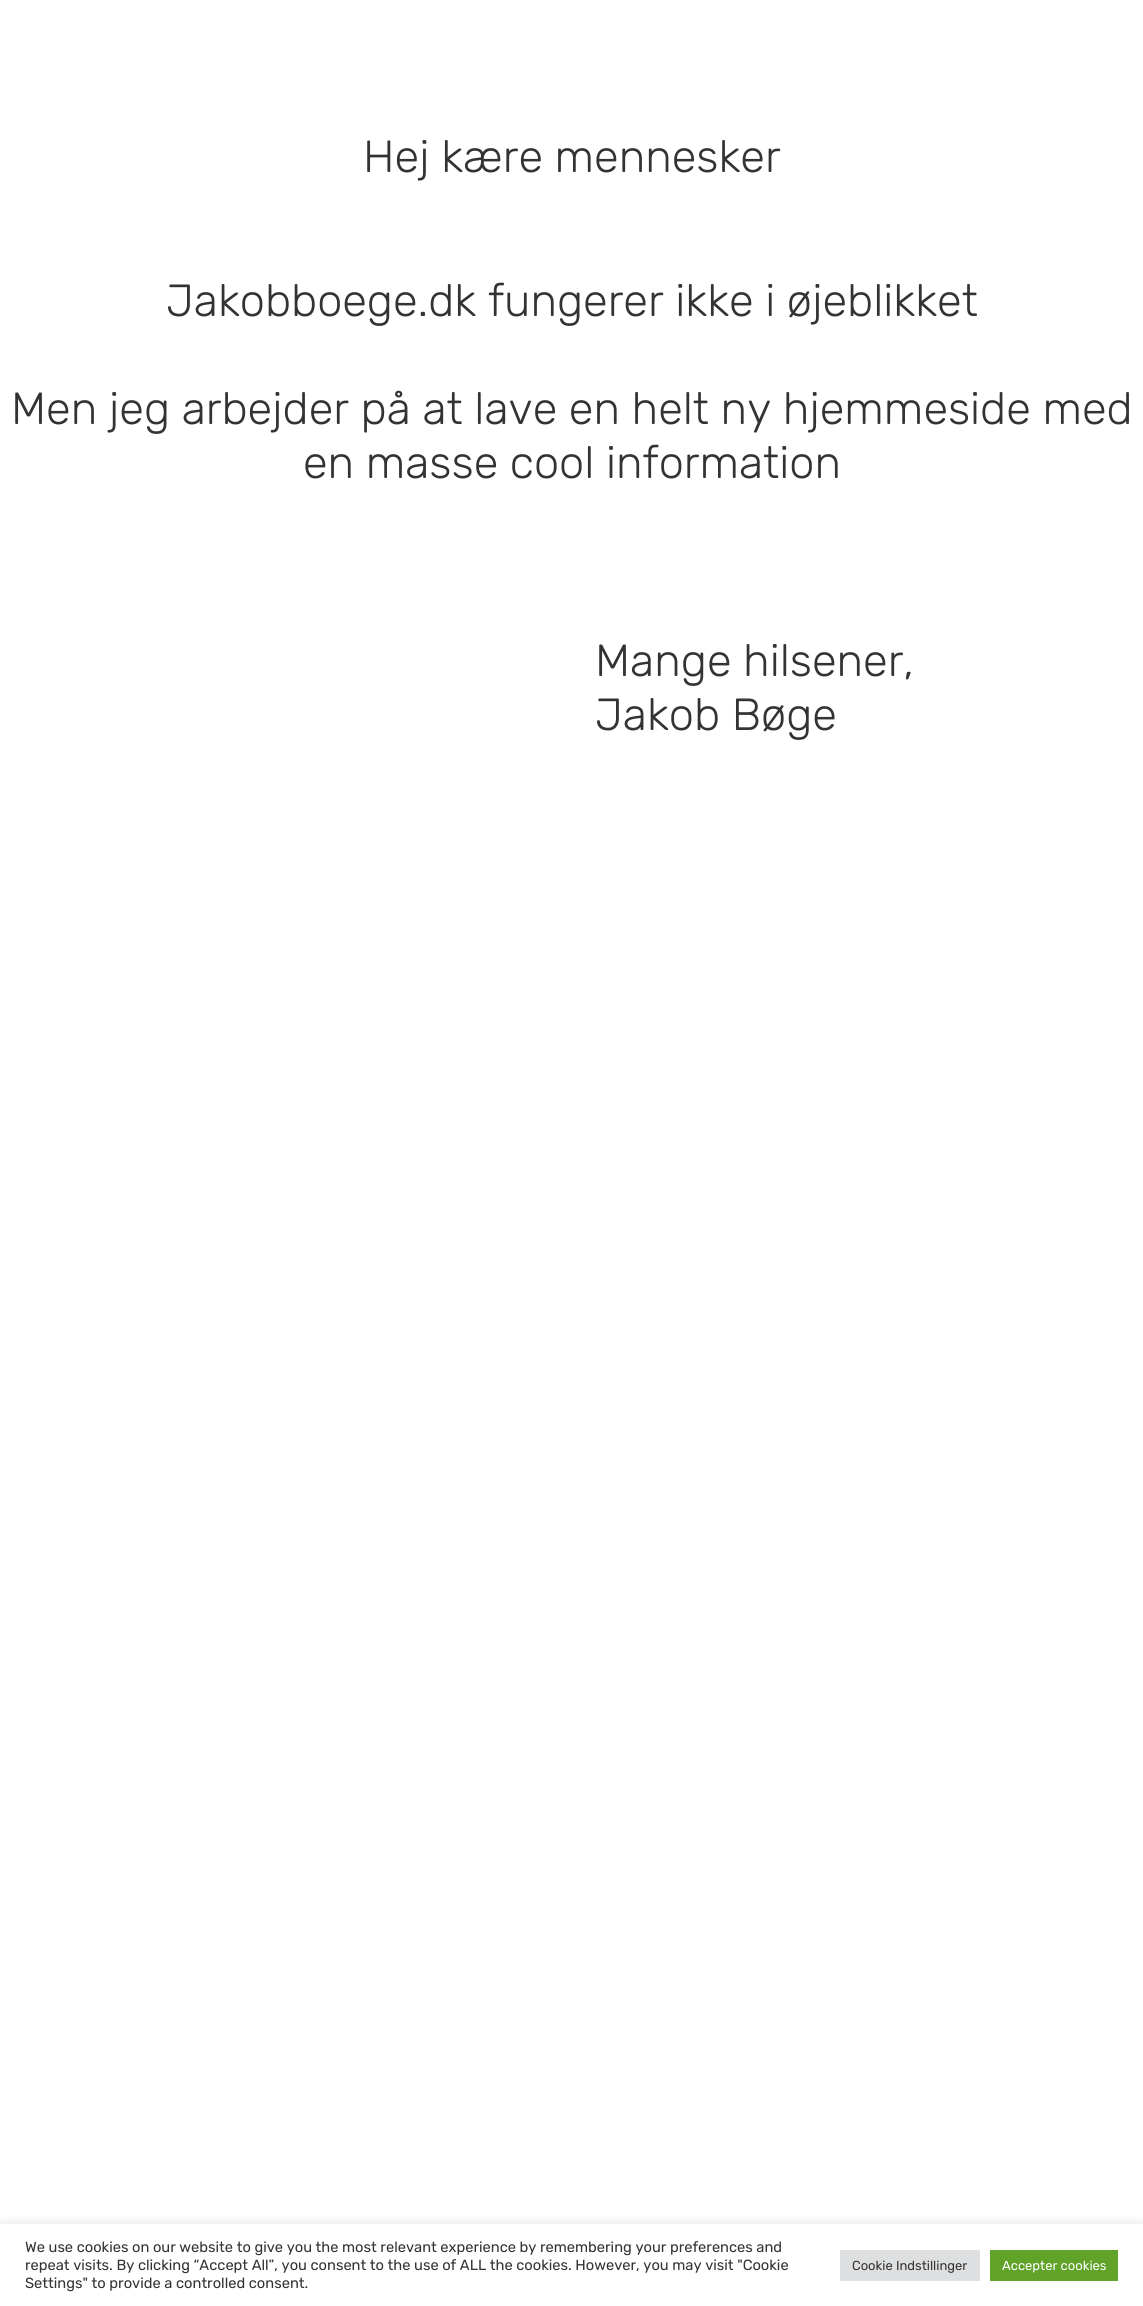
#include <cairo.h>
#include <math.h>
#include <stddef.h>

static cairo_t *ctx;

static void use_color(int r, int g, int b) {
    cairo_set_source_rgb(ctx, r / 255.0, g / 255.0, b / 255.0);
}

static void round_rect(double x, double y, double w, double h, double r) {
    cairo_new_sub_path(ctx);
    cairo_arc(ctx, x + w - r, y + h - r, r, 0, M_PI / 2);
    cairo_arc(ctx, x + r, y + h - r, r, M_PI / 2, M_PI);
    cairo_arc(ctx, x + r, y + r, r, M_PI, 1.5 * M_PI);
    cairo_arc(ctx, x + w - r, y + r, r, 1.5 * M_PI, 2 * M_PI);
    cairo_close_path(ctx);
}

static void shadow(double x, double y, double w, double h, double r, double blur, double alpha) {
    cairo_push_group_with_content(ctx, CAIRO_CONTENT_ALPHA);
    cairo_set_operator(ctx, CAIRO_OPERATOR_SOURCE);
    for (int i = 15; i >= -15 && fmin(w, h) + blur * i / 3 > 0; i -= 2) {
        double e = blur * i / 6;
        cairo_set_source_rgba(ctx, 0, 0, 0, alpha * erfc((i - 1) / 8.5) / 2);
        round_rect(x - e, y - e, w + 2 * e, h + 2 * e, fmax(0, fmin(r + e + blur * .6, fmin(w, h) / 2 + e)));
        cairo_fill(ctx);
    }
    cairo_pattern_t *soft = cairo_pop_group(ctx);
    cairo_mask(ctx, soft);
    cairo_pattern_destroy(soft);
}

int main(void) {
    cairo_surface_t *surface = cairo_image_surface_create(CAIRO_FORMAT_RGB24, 1143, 2306);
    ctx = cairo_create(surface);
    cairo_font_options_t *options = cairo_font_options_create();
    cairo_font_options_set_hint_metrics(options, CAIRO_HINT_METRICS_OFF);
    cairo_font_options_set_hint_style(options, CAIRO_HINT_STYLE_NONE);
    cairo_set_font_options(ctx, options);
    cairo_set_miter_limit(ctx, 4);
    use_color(255, 255, 255);
    cairo_paint(ctx);
    cairo_select_font_face(ctx, "Rubik Light", CAIRO_FONT_SLANT_NORMAL, CAIRO_FONT_WEIGHT_NORMAL);
    cairo_set_font_size(ctx, 45);
    use_color(51, 51, 51);
    cairo_move_to(ctx, 363, 172);
    cairo_show_text(ctx, "Hej kære mennesker");
    cairo_move_to(ctx, 166, 316);
    cairo_show_text(ctx, "Jakobboege.dk fungerer ikke i øjeblikket");
    cairo_move_to(ctx, 11, 424);
    cairo_show_text(ctx, "Men jeg arbejder på at lave en helt ny hjemmeside med");
    cairo_move_to(ctx, 303, 478);
    cairo_show_text(ctx, "en masse cool information");
    cairo_move_to(ctx, 595, 676);
    cairo_show_text(ctx, "Mange hilsener,");
    cairo_move_to(ctx, 595, 730);
    cairo_show_text(ctx, "Jakob Bøge");
    cairo_save(ctx);
    cairo_rectangle(ctx, 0, 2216, 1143, 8);
    cairo_clip(ctx);
    use_color(172, 171, 171);
    shadow(0, 2223, 1143, 82, 0, 5, 0.3);
    cairo_restore(ctx);
    cairo_select_font_face(ctx, "Rubik", CAIRO_FONT_SLANT_NORMAL, CAIRO_FONT_WEIGHT_NORMAL);
    cairo_set_font_size(ctx, 14.67);
    cairo_move_to(ctx, 25, 2252);
    cairo_show_text(ctx, "We use cookies on our website to give you the most relevant experience by remembering your preferences and");
    cairo_move_to(ctx, 25, 2270);
    cairo_show_text(ctx, "repeat visits. By clicking “Accept All”, you consent to the use of ALL the cookies. However, you may visit \"Cookie");
    cairo_move_to(ctx, 25, 2288);
    cairo_show_text(ctx, "Settings\" to provide a controlled consent.");
    use_color(222, 223, 224);
    cairo_rectangle(ctx, 840, 2250, 140, 31);
    cairo_fill(ctx);
    cairo_set_font_size(ctx, 13);
    use_color(51, 51, 51);
    cairo_move_to(ctx, 852, 2270);
    cairo_show_text(ctx, "Cookie Indstillinger");
    use_color(97, 162, 41);
    cairo_rectangle(ctx, 990, 2250, 128, 31);
    cairo_fill(ctx);
    use_color(255, 255, 255);
    cairo_move_to(ctx, 1002, 2270);
    cairo_show_text(ctx, "Accepter cookies");
    cairo_surface_write_to_png(surface, "result.png");
    cairo_font_options_destroy(options);
    cairo_destroy(ctx);
    cairo_surface_destroy(surface);
    return 0;
}
